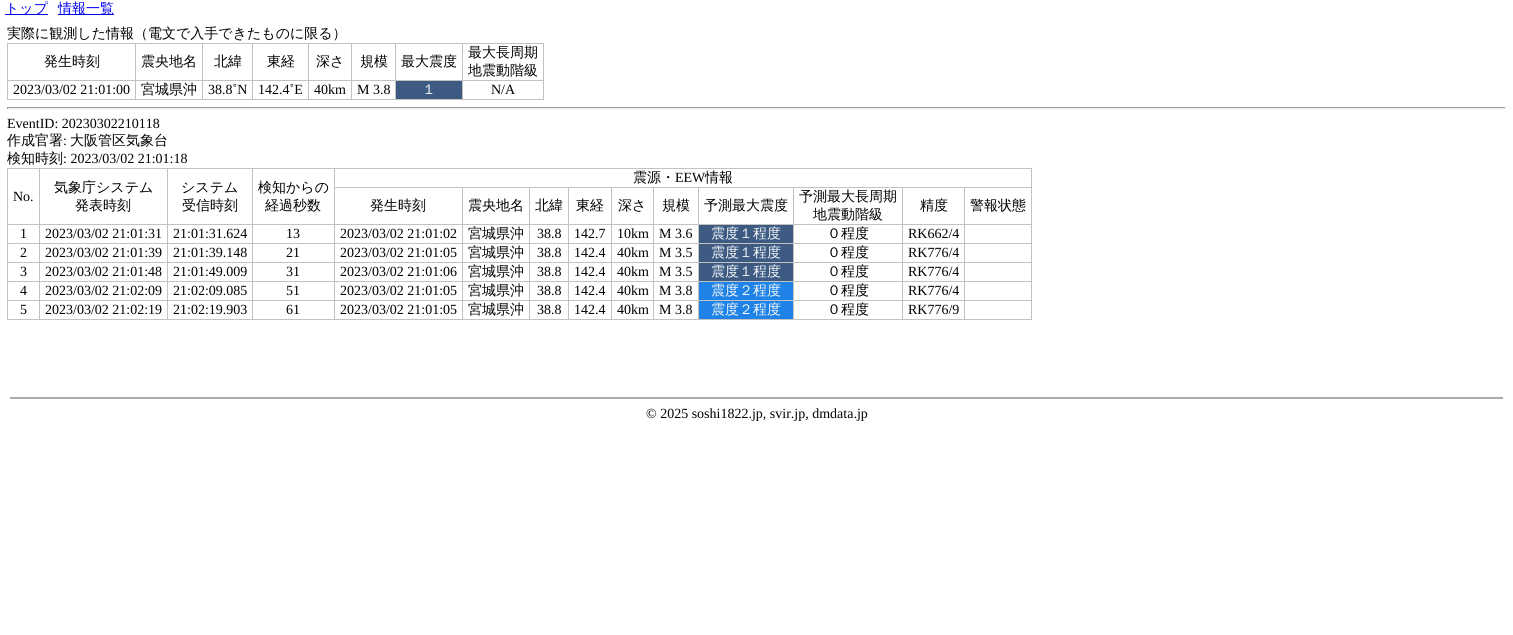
#include <cairo.h>
#include <math.h>
#include <stddef.h>

static cairo_t *ctx;

static void use_color(int r, int g, int b) {
    cairo_set_source_rgb(ctx, r / 255.0, g / 255.0, b / 255.0);
}

int main(void) {
    cairo_surface_t *surface = cairo_image_surface_create(CAIRO_FORMAT_RGB24, 1513, 635);
    ctx = cairo_create(surface);
    cairo_font_options_t *options = cairo_font_options_create();
    cairo_font_options_set_hint_metrics(options, CAIRO_HINT_METRICS_OFF);
    cairo_font_options_set_hint_style(options, CAIRO_HINT_STYLE_NONE);
    cairo_set_font_options(ctx, options);
    cairo_set_miter_limit(ctx, 4);
    use_color(255, 255, 255);
    cairo_paint(ctx);
    use_color(0, 0, 238);
    cairo_rectangle(ctx, 5, 14, 43, 1);
    cairo_fill(ctx);
    cairo_select_font_face(ctx, "WenQuanYi Zen Hei Medium", CAIRO_FONT_SLANT_NORMAL, CAIRO_FONT_WEIGHT_NORMAL);
    cairo_set_font_size(ctx, 14);
    cairo_move_to(ctx, 5, 13);
    cairo_show_text(ctx, "トップ");
    cairo_rectangle(ctx, 58, 14, 56, 1);
    cairo_fill(ctx);
    cairo_move_to(ctx, 58, 13);
    cairo_show_text(ctx, "情報一覧");
    use_color(0, 0, 0);
    cairo_move_to(ctx, 7, 38);
    cairo_show_text(ctx, "実際に観測した情報（電文で入手できたものに限る）");
    use_color(194, 194, 194);
    cairo_rectangle(ctx, 462, 43, 82, 1);
    cairo_fill(ctx);
    cairo_rectangle(ctx, 462, 80, 82, 1);
    cairo_fill(ctx);
    cairo_rectangle(ctx, 543, 80, 1, 20);
    cairo_fill(ctx);
    cairo_rectangle(ctx, 462, 99, 82, 1);
    cairo_fill(ctx);
    cairo_rectangle(ctx, 462, 80, 1, 20);
    cairo_fill(ctx);
    cairo_rectangle(ctx, 395, 80, 68, 1);
    cairo_fill(ctx);
    cairo_rectangle(ctx, 462, 43, 1, 38);
    cairo_fill(ctx);
    cairo_rectangle(ctx, 395, 43, 68, 1);
    cairo_fill(ctx);
    cairo_rectangle(ctx, 395, 99, 68, 1);
    cairo_fill(ctx);
    cairo_rectangle(ctx, 395, 80, 1, 20);
    cairo_fill(ctx);
    cairo_rectangle(ctx, 351, 80, 45, 1);
    cairo_fill(ctx);
    cairo_rectangle(ctx, 395, 43, 1, 38);
    cairo_fill(ctx);
    cairo_rectangle(ctx, 351, 43, 45, 1);
    cairo_fill(ctx);
    cairo_rectangle(ctx, 351, 99, 45, 1);
    cairo_fill(ctx);
    cairo_rectangle(ctx, 351, 80, 1, 20);
    cairo_fill(ctx);
    cairo_rectangle(ctx, 308, 80, 44, 1);
    cairo_fill(ctx);
    cairo_rectangle(ctx, 351, 43, 1, 38);
    cairo_fill(ctx);
    cairo_rectangle(ctx, 308, 43, 44, 1);
    cairo_fill(ctx);
    cairo_rectangle(ctx, 308, 99, 44, 1);
    cairo_fill(ctx);
    cairo_rectangle(ctx, 308, 80, 1, 20);
    cairo_fill(ctx);
    cairo_rectangle(ctx, 252, 80, 57, 1);
    cairo_fill(ctx);
    cairo_rectangle(ctx, 308, 43, 1, 38);
    cairo_fill(ctx);
    cairo_rectangle(ctx, 252, 43, 57, 1);
    cairo_fill(ctx);
    cairo_rectangle(ctx, 252, 99, 57, 1);
    cairo_fill(ctx);
    cairo_rectangle(ctx, 252, 80, 1, 20);
    cairo_fill(ctx);
    cairo_rectangle(ctx, 202, 80, 51, 1);
    cairo_fill(ctx);
    cairo_rectangle(ctx, 252, 43, 1, 38);
    cairo_fill(ctx);
    cairo_rectangle(ctx, 202, 43, 51, 1);
    cairo_fill(ctx);
    cairo_rectangle(ctx, 202, 99, 51, 1);
    cairo_fill(ctx);
    cairo_rectangle(ctx, 202, 80, 1, 20);
    cairo_fill(ctx);
    cairo_rectangle(ctx, 135, 80, 68, 1);
    cairo_fill(ctx);
    cairo_rectangle(ctx, 202, 43, 1, 38);
    cairo_fill(ctx);
    cairo_rectangle(ctx, 135, 43, 68, 1);
    cairo_fill(ctx);
    cairo_rectangle(ctx, 135, 99, 68, 1);
    cairo_fill(ctx);
    cairo_rectangle(ctx, 135, 80, 1, 20);
    cairo_fill(ctx);
    cairo_rectangle(ctx, 7, 80, 129, 1);
    cairo_fill(ctx);
    cairo_rectangle(ctx, 135, 43, 1, 38);
    cairo_fill(ctx);
    cairo_rectangle(ctx, 7, 43, 129, 1);
    cairo_fill(ctx);
    cairo_rectangle(ctx, 7, 99, 129, 1);
    cairo_fill(ctx);
    cairo_rectangle(ctx, 7, 80, 1, 20);
    cairo_fill(ctx);
    cairo_rectangle(ctx, 7, 43, 1, 38);
    cairo_fill(ctx);
    use_color(0, 0, 0);
    cairo_move_to(ctx, 44, 66);
    cairo_show_text(ctx, "発生時刻");
    cairo_move_to(ctx, 141, 66);
    cairo_show_text(ctx, "震央地名");
    cairo_move_to(ctx, 214, 66);
    cairo_show_text(ctx, "北緯");
    cairo_move_to(ctx, 267, 66);
    cairo_show_text(ctx, "東経");
    cairo_move_to(ctx, 316, 66);
    cairo_show_text(ctx, "深さ");
    cairo_move_to(ctx, 360, 66);
    cairo_show_text(ctx, "規模");
    cairo_move_to(ctx, 401, 66);
    cairo_show_text(ctx, "最大震度");
    use_color(194, 194, 194);
    cairo_rectangle(ctx, 543, 43, 1, 38);
    cairo_fill(ctx);
    use_color(0, 0, 0);
    cairo_move_to(ctx, 468, 57);
    cairo_show_text(ctx, "最大長周期");
    cairo_move_to(ctx, 468, 75);
    cairo_show_text(ctx, "地震動階級");
    cairo_select_font_face(ctx, "Liberation Serif", CAIRO_FONT_SLANT_NORMAL, CAIRO_FONT_WEIGHT_NORMAL);
    cairo_move_to(ctx, 13, 94);
    cairo_show_text(ctx, "2023/03/02 21:01:00");
    cairo_select_font_face(ctx, "WenQuanYi Zen Hei Medium", CAIRO_FONT_SLANT_NORMAL, CAIRO_FONT_WEIGHT_NORMAL);
    cairo_move_to(ctx, 141, 94);
    cairo_show_text(ctx, "宮城県沖");
    cairo_select_font_face(ctx, "Liberation Serif", CAIRO_FONT_SLANT_NORMAL, CAIRO_FONT_WEIGHT_NORMAL);
    cairo_move_to(ctx, 208, 94);
    cairo_show_text(ctx, "38.8˚N");
    cairo_move_to(ctx, 258, 94);
    cairo_show_text(ctx, "142.4˚E");
    cairo_move_to(ctx, 314, 94);
    cairo_show_text(ctx, "40km");
    cairo_move_to(ctx, 357, 94);
    cairo_show_text(ctx, "M 3.8");
    use_color(60, 90, 130);
    cairo_rectangle(ctx, 396, 81, 66, 18);
    cairo_fill(ctx);
    cairo_select_font_face(ctx, "WenQuanYi Zen Hei Medium", CAIRO_FONT_SLANT_NORMAL, CAIRO_FONT_WEIGHT_NORMAL);
    use_color(245, 247, 249);
    cairo_move_to(ctx, 422, 94);
    cairo_show_text(ctx, "１");
    cairo_select_font_face(ctx, "Liberation Serif", CAIRO_FONT_SLANT_NORMAL, CAIRO_FONT_WEIGHT_NORMAL);
    use_color(0, 0, 0);
    cairo_move_to(ctx, 491, 94);
    cairo_show_text(ctx, "N/A");
    use_color(159, 159, 159);
    cairo_rectangle(ctx, 7, 107, 1499, 1);
    cairo_fill(ctx);
    use_color(238, 238, 238);
    cairo_rectangle(ctx, 1505, 107, 1, 2);
    cairo_fill(ctx);
    cairo_rectangle(ctx, 7, 108, 1499, 1);
    cairo_fill(ctx);
    use_color(159, 159, 159);
    cairo_rectangle(ctx, 7, 107, 1, 2);
    cairo_fill(ctx);
    use_color(0, 0, 0);
    cairo_move_to(ctx, 7, 128);
    cairo_show_text(ctx, "EventID: 20230302210118");
    cairo_select_font_face(ctx, "WenQuanYi Zen Hei Medium", CAIRO_FONT_SLANT_NORMAL, CAIRO_FONT_WEIGHT_NORMAL);
    cairo_move_to(ctx, 7, 145);
    cairo_show_text(ctx, "作成官署");
    cairo_select_font_face(ctx, "Liberation Serif", CAIRO_FONT_SLANT_NORMAL, CAIRO_FONT_WEIGHT_NORMAL);
    cairo_move_to(ctx, 63, 145);
    cairo_show_text(ctx, ":");
    cairo_select_font_face(ctx, "WenQuanYi Zen Hei Medium", CAIRO_FONT_SLANT_NORMAL, CAIRO_FONT_WEIGHT_NORMAL);
    cairo_move_to(ctx, 70, 145);
    cairo_show_text(ctx, "大阪管区気象台");
    cairo_move_to(ctx, 7, 163);
    cairo_show_text(ctx, "検知時刻");
    cairo_select_font_face(ctx, "Liberation Serif", CAIRO_FONT_SLANT_NORMAL, CAIRO_FONT_WEIGHT_NORMAL);
    cairo_move_to(ctx, 63, 163);
    cairo_show_text(ctx, ": 2023/03/02 21:01:18");
    use_color(194, 194, 194);
    cairo_rectangle(ctx, 334, 168, 698, 1);
    cairo_fill(ctx);
    cairo_rectangle(ctx, 964, 187, 68, 1);
    cairo_fill(ctx);
    cairo_rectangle(ctx, 964, 224, 68, 1);
    cairo_fill(ctx);
    cairo_rectangle(ctx, 964, 243, 68, 1);
    cairo_fill(ctx);
    cairo_rectangle(ctx, 964, 262, 68, 1);
    cairo_fill(ctx);
    cairo_rectangle(ctx, 964, 281, 68, 1);
    cairo_fill(ctx);
    cairo_rectangle(ctx, 964, 300, 68, 1);
    cairo_fill(ctx);
    cairo_rectangle(ctx, 1031, 300, 1, 20);
    cairo_fill(ctx);
    cairo_rectangle(ctx, 1031, 281, 1, 20);
    cairo_fill(ctx);
    cairo_rectangle(ctx, 1031, 262, 1, 20);
    cairo_fill(ctx);
    cairo_rectangle(ctx, 1031, 243, 1, 20);
    cairo_fill(ctx);
    cairo_rectangle(ctx, 1031, 224, 1, 20);
    cairo_fill(ctx);
    cairo_rectangle(ctx, 1031, 187, 1, 38);
    cairo_fill(ctx);
    cairo_rectangle(ctx, 1031, 168, 1, 20);
    cairo_fill(ctx);
    cairo_rectangle(ctx, 964, 319, 68, 1);
    cairo_fill(ctx);
    cairo_rectangle(ctx, 964, 300, 1, 20);
    cairo_fill(ctx);
    cairo_rectangle(ctx, 902, 300, 63, 1);
    cairo_fill(ctx);
    cairo_rectangle(ctx, 964, 281, 1, 20);
    cairo_fill(ctx);
    cairo_rectangle(ctx, 902, 281, 63, 1);
    cairo_fill(ctx);
    cairo_rectangle(ctx, 964, 262, 1, 20);
    cairo_fill(ctx);
    cairo_rectangle(ctx, 902, 262, 63, 1);
    cairo_fill(ctx);
    cairo_rectangle(ctx, 964, 243, 1, 20);
    cairo_fill(ctx);
    cairo_rectangle(ctx, 902, 243, 63, 1);
    cairo_fill(ctx);
    cairo_rectangle(ctx, 964, 224, 1, 20);
    cairo_fill(ctx);
    cairo_rectangle(ctx, 902, 224, 63, 1);
    cairo_fill(ctx);
    cairo_rectangle(ctx, 964, 187, 1, 38);
    cairo_fill(ctx);
    cairo_rectangle(ctx, 902, 187, 63, 1);
    cairo_fill(ctx);
    cairo_rectangle(ctx, 902, 319, 63, 1);
    cairo_fill(ctx);
    cairo_rectangle(ctx, 902, 300, 1, 20);
    cairo_fill(ctx);
    cairo_rectangle(ctx, 793, 300, 110, 1);
    cairo_fill(ctx);
    cairo_rectangle(ctx, 902, 281, 1, 20);
    cairo_fill(ctx);
    cairo_rectangle(ctx, 793, 281, 110, 1);
    cairo_fill(ctx);
    cairo_rectangle(ctx, 902, 262, 1, 20);
    cairo_fill(ctx);
    cairo_rectangle(ctx, 793, 262, 110, 1);
    cairo_fill(ctx);
    cairo_rectangle(ctx, 902, 243, 1, 20);
    cairo_fill(ctx);
    cairo_rectangle(ctx, 793, 243, 110, 1);
    cairo_fill(ctx);
    cairo_rectangle(ctx, 902, 224, 1, 20);
    cairo_fill(ctx);
    cairo_rectangle(ctx, 793, 224, 110, 1);
    cairo_fill(ctx);
    cairo_rectangle(ctx, 902, 187, 1, 38);
    cairo_fill(ctx);
    cairo_rectangle(ctx, 793, 187, 110, 1);
    cairo_fill(ctx);
    cairo_rectangle(ctx, 793, 319, 110, 1);
    cairo_fill(ctx);
    cairo_rectangle(ctx, 793, 300, 1, 20);
    cairo_fill(ctx);
    cairo_rectangle(ctx, 698, 300, 96, 1);
    cairo_fill(ctx);
    cairo_rectangle(ctx, 793, 281, 1, 20);
    cairo_fill(ctx);
    cairo_rectangle(ctx, 698, 281, 96, 1);
    cairo_fill(ctx);
    cairo_rectangle(ctx, 793, 262, 1, 20);
    cairo_fill(ctx);
    cairo_rectangle(ctx, 698, 262, 96, 1);
    cairo_fill(ctx);
    cairo_rectangle(ctx, 793, 243, 1, 20);
    cairo_fill(ctx);
    cairo_rectangle(ctx, 698, 243, 96, 1);
    cairo_fill(ctx);
    cairo_rectangle(ctx, 793, 224, 1, 20);
    cairo_fill(ctx);
    cairo_rectangle(ctx, 698, 224, 96, 1);
    cairo_fill(ctx);
    cairo_rectangle(ctx, 793, 187, 1, 38);
    cairo_fill(ctx);
    cairo_rectangle(ctx, 698, 187, 96, 1);
    cairo_fill(ctx);
    cairo_rectangle(ctx, 698, 319, 96, 1);
    cairo_fill(ctx);
    cairo_rectangle(ctx, 698, 300, 1, 20);
    cairo_fill(ctx);
    cairo_rectangle(ctx, 653, 300, 46, 1);
    cairo_fill(ctx);
    cairo_rectangle(ctx, 698, 281, 1, 20);
    cairo_fill(ctx);
    cairo_rectangle(ctx, 653, 281, 46, 1);
    cairo_fill(ctx);
    cairo_rectangle(ctx, 698, 262, 1, 20);
    cairo_fill(ctx);
    cairo_rectangle(ctx, 653, 262, 46, 1);
    cairo_fill(ctx);
    cairo_rectangle(ctx, 698, 243, 1, 20);
    cairo_fill(ctx);
    cairo_rectangle(ctx, 653, 243, 46, 1);
    cairo_fill(ctx);
    cairo_rectangle(ctx, 698, 224, 1, 20);
    cairo_fill(ctx);
    cairo_rectangle(ctx, 653, 224, 46, 1);
    cairo_fill(ctx);
    cairo_rectangle(ctx, 698, 187, 1, 38);
    cairo_fill(ctx);
    cairo_rectangle(ctx, 653, 187, 46, 1);
    cairo_fill(ctx);
    cairo_rectangle(ctx, 653, 319, 46, 1);
    cairo_fill(ctx);
    cairo_rectangle(ctx, 653, 300, 1, 20);
    cairo_fill(ctx);
    cairo_rectangle(ctx, 611, 300, 43, 1);
    cairo_fill(ctx);
    cairo_rectangle(ctx, 653, 281, 1, 20);
    cairo_fill(ctx);
    cairo_rectangle(ctx, 611, 281, 43, 1);
    cairo_fill(ctx);
    cairo_rectangle(ctx, 653, 262, 1, 20);
    cairo_fill(ctx);
    cairo_rectangle(ctx, 611, 262, 43, 1);
    cairo_fill(ctx);
    cairo_rectangle(ctx, 653, 243, 1, 20);
    cairo_fill(ctx);
    cairo_rectangle(ctx, 611, 243, 43, 1);
    cairo_fill(ctx);
    cairo_rectangle(ctx, 653, 224, 1, 20);
    cairo_fill(ctx);
    cairo_rectangle(ctx, 611, 224, 43, 1);
    cairo_fill(ctx);
    cairo_rectangle(ctx, 653, 187, 1, 38);
    cairo_fill(ctx);
    cairo_rectangle(ctx, 611, 187, 43, 1);
    cairo_fill(ctx);
    cairo_rectangle(ctx, 611, 319, 43, 1);
    cairo_fill(ctx);
    cairo_rectangle(ctx, 611, 300, 1, 20);
    cairo_fill(ctx);
    cairo_rectangle(ctx, 568, 300, 44, 1);
    cairo_fill(ctx);
    cairo_rectangle(ctx, 611, 281, 1, 20);
    cairo_fill(ctx);
    cairo_rectangle(ctx, 568, 281, 44, 1);
    cairo_fill(ctx);
    cairo_rectangle(ctx, 611, 262, 1, 20);
    cairo_fill(ctx);
    cairo_rectangle(ctx, 568, 262, 44, 1);
    cairo_fill(ctx);
    cairo_rectangle(ctx, 611, 243, 1, 20);
    cairo_fill(ctx);
    cairo_rectangle(ctx, 568, 243, 44, 1);
    cairo_fill(ctx);
    cairo_rectangle(ctx, 611, 224, 1, 20);
    cairo_fill(ctx);
    cairo_rectangle(ctx, 568, 224, 44, 1);
    cairo_fill(ctx);
    cairo_rectangle(ctx, 611, 187, 1, 38);
    cairo_fill(ctx);
    cairo_rectangle(ctx, 568, 187, 44, 1);
    cairo_fill(ctx);
    cairo_rectangle(ctx, 568, 319, 44, 1);
    cairo_fill(ctx);
    cairo_rectangle(ctx, 568, 300, 1, 20);
    cairo_fill(ctx);
    cairo_rectangle(ctx, 529, 300, 40, 1);
    cairo_fill(ctx);
    cairo_rectangle(ctx, 568, 281, 1, 20);
    cairo_fill(ctx);
    cairo_rectangle(ctx, 529, 281, 40, 1);
    cairo_fill(ctx);
    cairo_rectangle(ctx, 568, 262, 1, 20);
    cairo_fill(ctx);
    cairo_rectangle(ctx, 529, 262, 40, 1);
    cairo_fill(ctx);
    cairo_rectangle(ctx, 568, 243, 1, 20);
    cairo_fill(ctx);
    cairo_rectangle(ctx, 529, 243, 40, 1);
    cairo_fill(ctx);
    cairo_rectangle(ctx, 568, 224, 1, 20);
    cairo_fill(ctx);
    cairo_rectangle(ctx, 529, 224, 40, 1);
    cairo_fill(ctx);
    cairo_rectangle(ctx, 568, 187, 1, 38);
    cairo_fill(ctx);
    cairo_rectangle(ctx, 529, 187, 40, 1);
    cairo_fill(ctx);
    cairo_rectangle(ctx, 529, 319, 40, 1);
    cairo_fill(ctx);
    cairo_rectangle(ctx, 529, 300, 1, 20);
    cairo_fill(ctx);
    cairo_rectangle(ctx, 462, 300, 68, 1);
    cairo_fill(ctx);
    cairo_rectangle(ctx, 529, 281, 1, 20);
    cairo_fill(ctx);
    cairo_rectangle(ctx, 462, 281, 68, 1);
    cairo_fill(ctx);
    cairo_rectangle(ctx, 529, 262, 1, 20);
    cairo_fill(ctx);
    cairo_rectangle(ctx, 462, 262, 68, 1);
    cairo_fill(ctx);
    cairo_rectangle(ctx, 529, 243, 1, 20);
    cairo_fill(ctx);
    cairo_rectangle(ctx, 462, 243, 68, 1);
    cairo_fill(ctx);
    cairo_rectangle(ctx, 529, 224, 1, 20);
    cairo_fill(ctx);
    cairo_rectangle(ctx, 462, 224, 68, 1);
    cairo_fill(ctx);
    cairo_rectangle(ctx, 529, 187, 1, 38);
    cairo_fill(ctx);
    cairo_rectangle(ctx, 462, 187, 68, 1);
    cairo_fill(ctx);
    cairo_rectangle(ctx, 462, 319, 68, 1);
    cairo_fill(ctx);
    cairo_rectangle(ctx, 462, 300, 1, 20);
    cairo_fill(ctx);
    cairo_rectangle(ctx, 334, 300, 129, 1);
    cairo_fill(ctx);
    cairo_rectangle(ctx, 462, 281, 1, 20);
    cairo_fill(ctx);
    cairo_rectangle(ctx, 334, 281, 129, 1);
    cairo_fill(ctx);
    cairo_rectangle(ctx, 462, 262, 1, 20);
    cairo_fill(ctx);
    cairo_rectangle(ctx, 334, 262, 129, 1);
    cairo_fill(ctx);
    cairo_rectangle(ctx, 462, 243, 1, 20);
    cairo_fill(ctx);
    cairo_rectangle(ctx, 334, 243, 129, 1);
    cairo_fill(ctx);
    cairo_rectangle(ctx, 462, 224, 1, 20);
    cairo_fill(ctx);
    cairo_rectangle(ctx, 334, 224, 129, 1);
    cairo_fill(ctx);
    cairo_rectangle(ctx, 462, 187, 1, 38);
    cairo_fill(ctx);
    cairo_rectangle(ctx, 334, 187, 129, 1);
    cairo_fill(ctx);
    cairo_rectangle(ctx, 334, 319, 129, 1);
    cairo_fill(ctx);
    cairo_rectangle(ctx, 334, 300, 1, 20);
    cairo_fill(ctx);
    cairo_rectangle(ctx, 252, 300, 83, 1);
    cairo_fill(ctx);
    cairo_rectangle(ctx, 334, 281, 1, 20);
    cairo_fill(ctx);
    cairo_rectangle(ctx, 252, 281, 83, 1);
    cairo_fill(ctx);
    cairo_rectangle(ctx, 334, 262, 1, 20);
    cairo_fill(ctx);
    cairo_rectangle(ctx, 252, 262, 83, 1);
    cairo_fill(ctx);
    cairo_rectangle(ctx, 334, 243, 1, 20);
    cairo_fill(ctx);
    cairo_rectangle(ctx, 252, 243, 83, 1);
    cairo_fill(ctx);
    cairo_rectangle(ctx, 334, 224, 1, 20);
    cairo_fill(ctx);
    cairo_rectangle(ctx, 252, 224, 83, 1);
    cairo_fill(ctx);
    cairo_rectangle(ctx, 334, 187, 1, 38);
    cairo_fill(ctx);
    cairo_rectangle(ctx, 334, 168, 1, 20);
    cairo_fill(ctx);
    cairo_select_font_face(ctx, "WenQuanYi Zen Hei Medium", CAIRO_FONT_SLANT_NORMAL, CAIRO_FONT_WEIGHT_NORMAL);
    use_color(0, 0, 0);
    cairo_move_to(ctx, 633, 182);
    cairo_show_text(ctx, "震源・");
    cairo_select_font_face(ctx, "Liberation Serif", CAIRO_FONT_SLANT_NORMAL, CAIRO_FONT_WEIGHT_NORMAL);
    cairo_move_to(ctx, 675, 182);
    cairo_show_text(ctx, "EEW");
    cairo_select_font_face(ctx, "WenQuanYi Zen Hei Medium", CAIRO_FONT_SLANT_NORMAL, CAIRO_FONT_WEIGHT_NORMAL);
    cairo_move_to(ctx, 705, 182);
    cairo_show_text(ctx, "情報");
    use_color(194, 194, 194);
    cairo_rectangle(ctx, 252, 168, 83, 1);
    cairo_fill(ctx);
    cairo_rectangle(ctx, 252, 319, 83, 1);
    cairo_fill(ctx);
    cairo_rectangle(ctx, 252, 300, 1, 20);
    cairo_fill(ctx);
    cairo_rectangle(ctx, 167, 300, 86, 1);
    cairo_fill(ctx);
    cairo_rectangle(ctx, 252, 281, 1, 20);
    cairo_fill(ctx);
    cairo_rectangle(ctx, 167, 281, 86, 1);
    cairo_fill(ctx);
    cairo_rectangle(ctx, 252, 262, 1, 20);
    cairo_fill(ctx);
    cairo_rectangle(ctx, 167, 262, 86, 1);
    cairo_fill(ctx);
    cairo_rectangle(ctx, 252, 243, 1, 20);
    cairo_fill(ctx);
    cairo_rectangle(ctx, 167, 243, 86, 1);
    cairo_fill(ctx);
    cairo_rectangle(ctx, 252, 224, 1, 20);
    cairo_fill(ctx);
    cairo_rectangle(ctx, 167, 224, 86, 1);
    cairo_fill(ctx);
    cairo_rectangle(ctx, 252, 168, 1, 57);
    cairo_fill(ctx);
    cairo_rectangle(ctx, 167, 168, 86, 1);
    cairo_fill(ctx);
    cairo_rectangle(ctx, 167, 319, 86, 1);
    cairo_fill(ctx);
    cairo_rectangle(ctx, 167, 300, 1, 20);
    cairo_fill(ctx);
    cairo_rectangle(ctx, 39, 300, 129, 1);
    cairo_fill(ctx);
    cairo_rectangle(ctx, 167, 281, 1, 20);
    cairo_fill(ctx);
    cairo_rectangle(ctx, 39, 281, 129, 1);
    cairo_fill(ctx);
    cairo_rectangle(ctx, 167, 262, 1, 20);
    cairo_fill(ctx);
    cairo_rectangle(ctx, 39, 262, 129, 1);
    cairo_fill(ctx);
    cairo_rectangle(ctx, 167, 243, 1, 20);
    cairo_fill(ctx);
    cairo_rectangle(ctx, 39, 243, 129, 1);
    cairo_fill(ctx);
    cairo_rectangle(ctx, 167, 224, 1, 20);
    cairo_fill(ctx);
    cairo_rectangle(ctx, 39, 224, 129, 1);
    cairo_fill(ctx);
    cairo_rectangle(ctx, 167, 168, 1, 57);
    cairo_fill(ctx);
    cairo_rectangle(ctx, 39, 168, 129, 1);
    cairo_fill(ctx);
    cairo_rectangle(ctx, 39, 319, 129, 1);
    cairo_fill(ctx);
    cairo_rectangle(ctx, 39, 300, 1, 20);
    cairo_fill(ctx);
    cairo_rectangle(ctx, 7, 300, 33, 1);
    cairo_fill(ctx);
    cairo_rectangle(ctx, 39, 281, 1, 20);
    cairo_fill(ctx);
    cairo_rectangle(ctx, 7, 281, 33, 1);
    cairo_fill(ctx);
    cairo_rectangle(ctx, 39, 262, 1, 20);
    cairo_fill(ctx);
    cairo_rectangle(ctx, 7, 262, 33, 1);
    cairo_fill(ctx);
    cairo_rectangle(ctx, 39, 243, 1, 20);
    cairo_fill(ctx);
    cairo_rectangle(ctx, 7, 243, 33, 1);
    cairo_fill(ctx);
    cairo_rectangle(ctx, 39, 224, 1, 20);
    cairo_fill(ctx);
    cairo_rectangle(ctx, 7, 224, 33, 1);
    cairo_fill(ctx);
    cairo_rectangle(ctx, 39, 168, 1, 57);
    cairo_fill(ctx);
    cairo_rectangle(ctx, 7, 168, 33, 1);
    cairo_fill(ctx);
    cairo_rectangle(ctx, 7, 319, 33, 1);
    cairo_fill(ctx);
    cairo_rectangle(ctx, 7, 300, 1, 20);
    cairo_fill(ctx);
    cairo_rectangle(ctx, 7, 281, 1, 20);
    cairo_fill(ctx);
    cairo_rectangle(ctx, 7, 262, 1, 20);
    cairo_fill(ctx);
    cairo_rectangle(ctx, 7, 243, 1, 20);
    cairo_fill(ctx);
    cairo_rectangle(ctx, 7, 224, 1, 20);
    cairo_fill(ctx);
    cairo_rectangle(ctx, 7, 168, 1, 57);
    cairo_fill(ctx);
    cairo_select_font_face(ctx, "Liberation Serif", CAIRO_FONT_SLANT_NORMAL, CAIRO_FONT_WEIGHT_NORMAL);
    use_color(0, 0, 0);
    cairo_move_to(ctx, 13, 201);
    cairo_show_text(ctx, "No.");
    cairo_select_font_face(ctx, "WenQuanYi Zen Hei Medium", CAIRO_FONT_SLANT_NORMAL, CAIRO_FONT_WEIGHT_NORMAL);
    cairo_move_to(ctx, 54, 192);
    cairo_show_text(ctx, "気象庁システム");
    cairo_move_to(ctx, 75, 210);
    cairo_show_text(ctx, "発表時刻");
    cairo_move_to(ctx, 181, 192);
    cairo_show_text(ctx, "システム");
    cairo_move_to(ctx, 182, 210);
    cairo_show_text(ctx, "受信時刻");
    cairo_move_to(ctx, 258, 192);
    cairo_show_text(ctx, "検知からの");
    cairo_move_to(ctx, 265, 210);
    cairo_show_text(ctx, "経過秒数");
    cairo_move_to(ctx, 370, 210);
    cairo_show_text(ctx, "発生時刻");
    cairo_move_to(ctx, 468, 210);
    cairo_show_text(ctx, "震央地名");
    cairo_move_to(ctx, 535, 210);
    cairo_show_text(ctx, "北緯");
    cairo_move_to(ctx, 576, 210);
    cairo_show_text(ctx, "東経");
    cairo_move_to(ctx, 618, 210);
    cairo_show_text(ctx, "深さ");
    cairo_move_to(ctx, 662, 210);
    cairo_show_text(ctx, "規模");
    cairo_move_to(ctx, 704, 210);
    cairo_show_text(ctx, "予測最大震度");
    cairo_move_to(ctx, 799, 201);
    cairo_show_text(ctx, "予測最大長周期");
    cairo_move_to(ctx, 813, 219);
    cairo_show_text(ctx, "地震動階級");
    cairo_move_to(ctx, 920, 210);
    cairo_show_text(ctx, "精度");
    cairo_move_to(ctx, 970, 210);
    cairo_show_text(ctx, "警報状態");
    cairo_select_font_face(ctx, "Liberation Serif", CAIRO_FONT_SLANT_NORMAL, CAIRO_FONT_WEIGHT_NORMAL);
    cairo_move_to(ctx, 20, 238);
    cairo_show_text(ctx, "1");
    cairo_move_to(ctx, 45, 238);
    cairo_show_text(ctx, "2023/03/02 21:01:31");
    cairo_move_to(ctx, 173, 238);
    cairo_show_text(ctx, "21:01:31.624");
    cairo_move_to(ctx, 286, 238);
    cairo_show_text(ctx, "13");
    cairo_move_to(ctx, 340, 238);
    cairo_show_text(ctx, "2023/03/02 21:01:02");
    cairo_select_font_face(ctx, "WenQuanYi Zen Hei Medium", CAIRO_FONT_SLANT_NORMAL, CAIRO_FONT_WEIGHT_NORMAL);
    cairo_move_to(ctx, 468, 238);
    cairo_show_text(ctx, "宮城県沖");
    cairo_select_font_face(ctx, "Liberation Serif", CAIRO_FONT_SLANT_NORMAL, CAIRO_FONT_WEIGHT_NORMAL);
    cairo_move_to(ctx, 537, 238);
    cairo_show_text(ctx, "38.8");
    cairo_move_to(ctx, 574, 238);
    cairo_show_text(ctx, "142.7");
    cairo_move_to(ctx, 617, 238);
    cairo_show_text(ctx, "10km");
    cairo_move_to(ctx, 659, 238);
    cairo_show_text(ctx, "M 3.6");
    use_color(60, 90, 130);
    cairo_rectangle(ctx, 699, 225, 94, 18);
    cairo_fill(ctx);
    cairo_select_font_face(ctx, "WenQuanYi Zen Hei Medium", CAIRO_FONT_SLANT_NORMAL, CAIRO_FONT_WEIGHT_NORMAL);
    use_color(245, 247, 249);
    cairo_move_to(ctx, 711, 238);
    cairo_show_text(ctx, "震度１程度");
    use_color(0, 0, 0);
    cairo_move_to(ctx, 827, 238);
    cairo_show_text(ctx, "０程度");
    cairo_select_font_face(ctx, "Liberation Serif", CAIRO_FONT_SLANT_NORMAL, CAIRO_FONT_WEIGHT_NORMAL);
    cairo_move_to(ctx, 908, 238);
    cairo_show_text(ctx, "RK662/4");
    cairo_move_to(ctx, 20, 257);
    cairo_show_text(ctx, "2");
    cairo_move_to(ctx, 45, 257);
    cairo_show_text(ctx, "2023/03/02 21:01:39");
    cairo_move_to(ctx, 173, 257);
    cairo_show_text(ctx, "21:01:39.148");
    cairo_move_to(ctx, 286, 257);
    cairo_show_text(ctx, "21");
    cairo_move_to(ctx, 340, 257);
    cairo_show_text(ctx, "2023/03/02 21:01:05");
    cairo_select_font_face(ctx, "WenQuanYi Zen Hei Medium", CAIRO_FONT_SLANT_NORMAL, CAIRO_FONT_WEIGHT_NORMAL);
    cairo_move_to(ctx, 468, 257);
    cairo_show_text(ctx, "宮城県沖");
    cairo_select_font_face(ctx, "Liberation Serif", CAIRO_FONT_SLANT_NORMAL, CAIRO_FONT_WEIGHT_NORMAL);
    cairo_move_to(ctx, 537, 257);
    cairo_show_text(ctx, "38.8");
    cairo_move_to(ctx, 574, 257);
    cairo_show_text(ctx, "142.4");
    cairo_move_to(ctx, 617, 257);
    cairo_show_text(ctx, "40km");
    cairo_move_to(ctx, 659, 257);
    cairo_show_text(ctx, "M 3.5");
    use_color(60, 90, 130);
    cairo_rectangle(ctx, 699, 244, 94, 18);
    cairo_fill(ctx);
    cairo_select_font_face(ctx, "WenQuanYi Zen Hei Medium", CAIRO_FONT_SLANT_NORMAL, CAIRO_FONT_WEIGHT_NORMAL);
    use_color(245, 247, 249);
    cairo_move_to(ctx, 711, 257);
    cairo_show_text(ctx, "震度１程度");
    use_color(0, 0, 0);
    cairo_move_to(ctx, 827, 257);
    cairo_show_text(ctx, "０程度");
    cairo_select_font_face(ctx, "Liberation Serif", CAIRO_FONT_SLANT_NORMAL, CAIRO_FONT_WEIGHT_NORMAL);
    cairo_move_to(ctx, 908, 257);
    cairo_show_text(ctx, "RK776/4");
    cairo_move_to(ctx, 20, 276);
    cairo_show_text(ctx, "3");
    cairo_move_to(ctx, 45, 276);
    cairo_show_text(ctx, "2023/03/02 21:01:48");
    cairo_move_to(ctx, 173, 276);
    cairo_show_text(ctx, "21:01:49.009");
    cairo_move_to(ctx, 286, 276);
    cairo_show_text(ctx, "31");
    cairo_move_to(ctx, 340, 276);
    cairo_show_text(ctx, "2023/03/02 21:01:06");
    cairo_select_font_face(ctx, "WenQuanYi Zen Hei Medium", CAIRO_FONT_SLANT_NORMAL, CAIRO_FONT_WEIGHT_NORMAL);
    cairo_move_to(ctx, 468, 276);
    cairo_show_text(ctx, "宮城県沖");
    cairo_select_font_face(ctx, "Liberation Serif", CAIRO_FONT_SLANT_NORMAL, CAIRO_FONT_WEIGHT_NORMAL);
    cairo_move_to(ctx, 537, 276);
    cairo_show_text(ctx, "38.8");
    cairo_move_to(ctx, 574, 276);
    cairo_show_text(ctx, "142.4");
    cairo_move_to(ctx, 617, 276);
    cairo_show_text(ctx, "40km");
    cairo_move_to(ctx, 659, 276);
    cairo_show_text(ctx, "M 3.5");
    use_color(60, 90, 130);
    cairo_rectangle(ctx, 699, 263, 94, 18);
    cairo_fill(ctx);
    cairo_select_font_face(ctx, "WenQuanYi Zen Hei Medium", CAIRO_FONT_SLANT_NORMAL, CAIRO_FONT_WEIGHT_NORMAL);
    use_color(245, 247, 249);
    cairo_move_to(ctx, 711, 276);
    cairo_show_text(ctx, "震度１程度");
    use_color(0, 0, 0);
    cairo_move_to(ctx, 827, 276);
    cairo_show_text(ctx, "０程度");
    cairo_select_font_face(ctx, "Liberation Serif", CAIRO_FONT_SLANT_NORMAL, CAIRO_FONT_WEIGHT_NORMAL);
    cairo_move_to(ctx, 908, 276);
    cairo_show_text(ctx, "RK776/4");
    cairo_move_to(ctx, 20, 295);
    cairo_show_text(ctx, "4");
    cairo_move_to(ctx, 45, 295);
    cairo_show_text(ctx, "2023/03/02 21:02:09");
    cairo_move_to(ctx, 173, 295);
    cairo_show_text(ctx, "21:02:09.085");
    cairo_move_to(ctx, 286, 295);
    cairo_show_text(ctx, "51");
    cairo_move_to(ctx, 340, 295);
    cairo_show_text(ctx, "2023/03/02 21:01:05");
    cairo_select_font_face(ctx, "WenQuanYi Zen Hei Medium", CAIRO_FONT_SLANT_NORMAL, CAIRO_FONT_WEIGHT_NORMAL);
    cairo_move_to(ctx, 468, 295);
    cairo_show_text(ctx, "宮城県沖");
    cairo_select_font_face(ctx, "Liberation Serif", CAIRO_FONT_SLANT_NORMAL, CAIRO_FONT_WEIGHT_NORMAL);
    cairo_move_to(ctx, 537, 295);
    cairo_show_text(ctx, "38.8");
    cairo_move_to(ctx, 574, 295);
    cairo_show_text(ctx, "142.4");
    cairo_move_to(ctx, 617, 295);
    cairo_show_text(ctx, "40km");
    cairo_move_to(ctx, 659, 295);
    cairo_show_text(ctx, "M 3.8");
    use_color(30, 130, 230);
    cairo_rectangle(ctx, 699, 282, 94, 18);
    cairo_fill(ctx);
    cairo_select_font_face(ctx, "WenQuanYi Zen Hei Medium", CAIRO_FONT_SLANT_NORMAL, CAIRO_FONT_WEIGHT_NORMAL);
    use_color(245, 247, 249);
    cairo_move_to(ctx, 711, 295);
    cairo_show_text(ctx, "震度２程度");
    use_color(0, 0, 0);
    cairo_move_to(ctx, 827, 295);
    cairo_show_text(ctx, "０程度");
    cairo_select_font_face(ctx, "Liberation Serif", CAIRO_FONT_SLANT_NORMAL, CAIRO_FONT_WEIGHT_NORMAL);
    cairo_move_to(ctx, 908, 295);
    cairo_show_text(ctx, "RK776/4");
    cairo_move_to(ctx, 20, 314);
    cairo_show_text(ctx, "5");
    cairo_move_to(ctx, 45, 314);
    cairo_show_text(ctx, "2023/03/02 21:02:19");
    cairo_move_to(ctx, 173, 314);
    cairo_show_text(ctx, "21:02:19.903");
    cairo_move_to(ctx, 286, 314);
    cairo_show_text(ctx, "61");
    cairo_move_to(ctx, 340, 314);
    cairo_show_text(ctx, "2023/03/02 21:01:05");
    cairo_select_font_face(ctx, "WenQuanYi Zen Hei Medium", CAIRO_FONT_SLANT_NORMAL, CAIRO_FONT_WEIGHT_NORMAL);
    cairo_move_to(ctx, 468, 314);
    cairo_show_text(ctx, "宮城県沖");
    cairo_select_font_face(ctx, "Liberation Serif", CAIRO_FONT_SLANT_NORMAL, CAIRO_FONT_WEIGHT_NORMAL);
    cairo_move_to(ctx, 537, 314);
    cairo_show_text(ctx, "38.8");
    cairo_move_to(ctx, 574, 314);
    cairo_show_text(ctx, "142.4");
    cairo_move_to(ctx, 617, 314);
    cairo_show_text(ctx, "40km");
    cairo_move_to(ctx, 659, 314);
    cairo_show_text(ctx, "M 3.8");
    use_color(30, 130, 230);
    cairo_rectangle(ctx, 699, 301, 94, 18);
    cairo_fill(ctx);
    cairo_select_font_face(ctx, "WenQuanYi Zen Hei Medium", CAIRO_FONT_SLANT_NORMAL, CAIRO_FONT_WEIGHT_NORMAL);
    use_color(245, 247, 249);
    cairo_move_to(ctx, 711, 314);
    cairo_show_text(ctx, "震度２程度");
    use_color(0, 0, 0);
    cairo_move_to(ctx, 827, 314);
    cairo_show_text(ctx, "０程度");
    cairo_select_font_face(ctx, "Liberation Serif", CAIRO_FONT_SLANT_NORMAL, CAIRO_FONT_WEIGHT_NORMAL);
    cairo_move_to(ctx, 908, 314);
    cairo_show_text(ctx, "RK776/9");
    use_color(170, 170, 170);
    cairo_rectangle(ctx, 10, 397, 1493, 2);
    cairo_fill(ctx);
    use_color(0, 0, 0);
    cairo_move_to(ctx, 646, 418);
    cairo_show_text(ctx, "© 2025 soshi1822.jp, svir.jp, dmdata.jp");
    cairo_surface_write_to_png(surface, "result.png");
    cairo_font_options_destroy(options);
    cairo_destroy(ctx);
    cairo_surface_destroy(surface);
    return 0;
}
